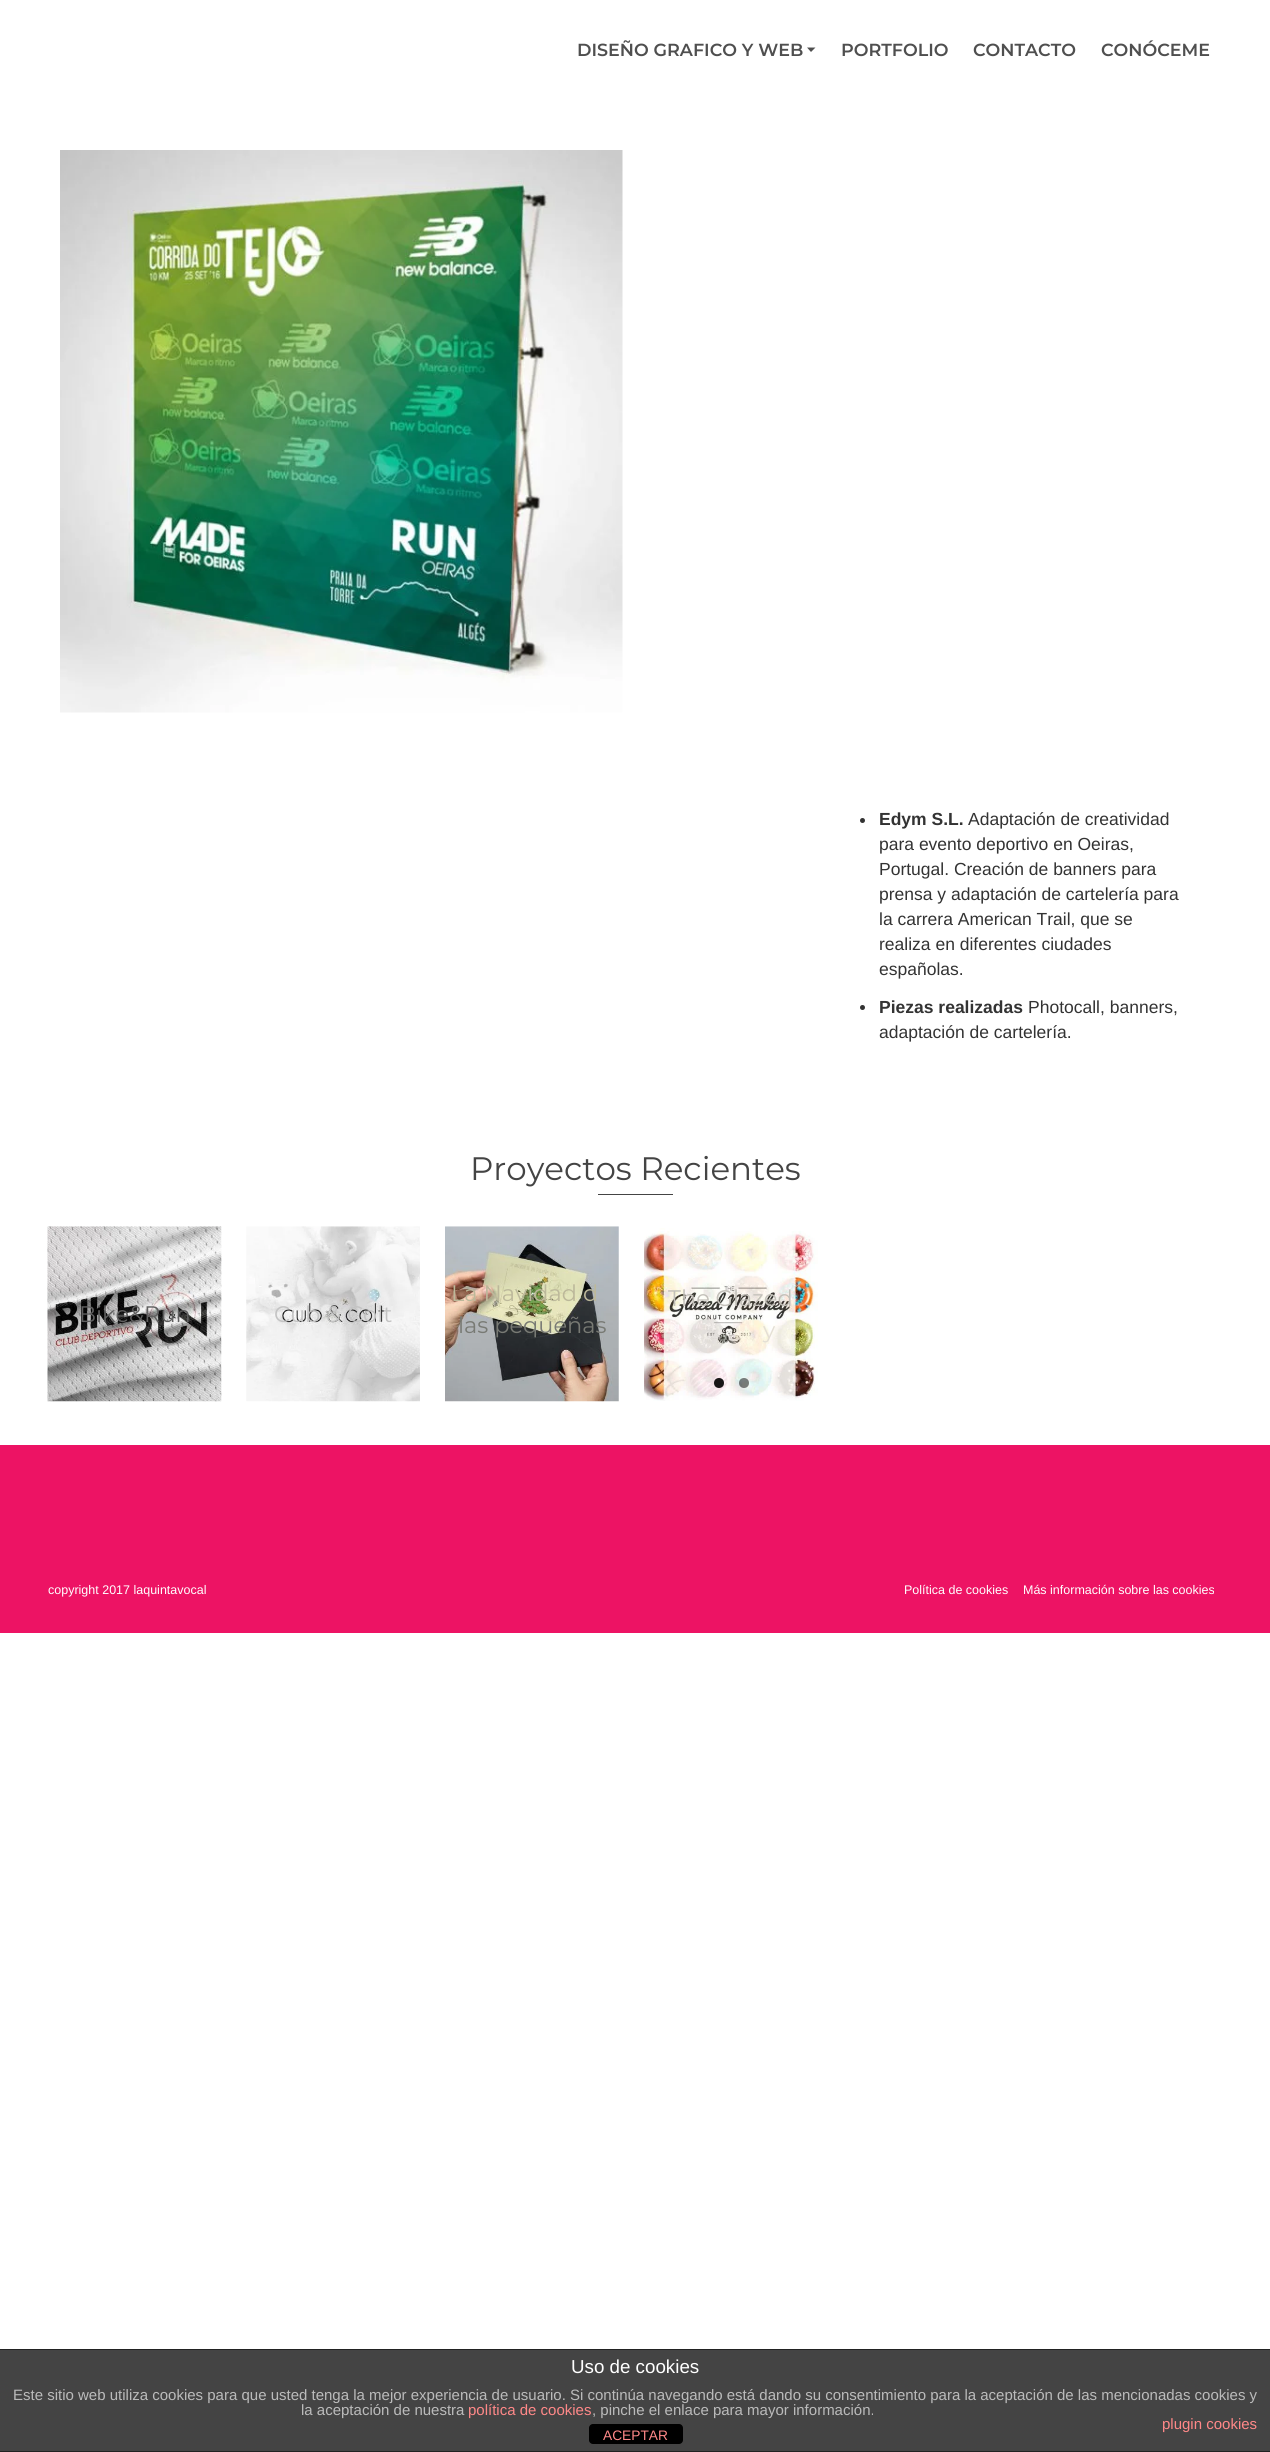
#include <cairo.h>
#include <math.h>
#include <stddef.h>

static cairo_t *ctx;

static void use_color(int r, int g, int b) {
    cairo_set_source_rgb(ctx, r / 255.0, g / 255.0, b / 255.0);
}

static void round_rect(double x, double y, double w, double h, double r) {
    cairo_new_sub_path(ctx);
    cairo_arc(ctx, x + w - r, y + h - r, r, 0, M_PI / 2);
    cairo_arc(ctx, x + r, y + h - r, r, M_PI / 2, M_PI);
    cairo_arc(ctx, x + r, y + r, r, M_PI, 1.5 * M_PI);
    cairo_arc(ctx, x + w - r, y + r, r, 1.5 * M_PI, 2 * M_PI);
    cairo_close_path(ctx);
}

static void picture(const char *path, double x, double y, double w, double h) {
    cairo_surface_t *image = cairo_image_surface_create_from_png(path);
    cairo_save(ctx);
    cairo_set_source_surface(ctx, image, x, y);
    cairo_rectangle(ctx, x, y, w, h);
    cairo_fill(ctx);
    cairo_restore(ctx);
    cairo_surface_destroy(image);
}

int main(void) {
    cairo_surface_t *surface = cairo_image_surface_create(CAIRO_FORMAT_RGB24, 1270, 2452);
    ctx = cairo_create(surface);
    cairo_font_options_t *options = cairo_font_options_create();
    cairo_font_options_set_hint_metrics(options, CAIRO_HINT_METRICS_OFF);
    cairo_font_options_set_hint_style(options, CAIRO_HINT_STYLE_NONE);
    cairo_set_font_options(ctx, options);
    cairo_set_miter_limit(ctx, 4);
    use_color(255, 255, 255);
    cairo_paint(ctx);
    cairo_select_font_face(ctx, "Montserrat SemiBold", CAIRO_FONT_SLANT_NORMAL, CAIRO_FONT_WEIGHT_NORMAL);
    cairo_set_font_size(ctx, 17.5);
    use_color(79, 79, 79);
    cairo_move_to(ctx, 577, 56);
    cairo_show_text(ctx, "DISEÑO GRAFICO Y WEB");
    cairo_new_path(ctx);
    cairo_move_to(ctx, 807, 47.5);
    cairo_line_to(ctx, 811, 52);
    cairo_line_to(ctx, 815.5, 47.5);
    cairo_close_path(ctx);
    cairo_fill(ctx);
    cairo_move_to(ctx, 841, 56);
    cairo_show_text(ctx, "PORTFOLIO");
    cairo_move_to(ctx, 973, 56);
    cairo_show_text(ctx, "CONTACTO");
    cairo_move_to(ctx, 1101, 56);
    cairo_show_text(ctx, "CONÓCEME");
    picture("img1.png", 60, 150, 563, 563);
    use_color(51, 51, 51);
    cairo_arc(ctx, 862.5, 820.5, 2.5, 0, 2 * M_PI);
    cairo_fill(ctx);
    cairo_select_font_face(ctx, "Liberation Sans", CAIRO_FONT_SLANT_NORMAL, CAIRO_FONT_WEIGHT_BOLD);
    cairo_move_to(ctx, 879, 825);
    cairo_show_text(ctx, "Edym S.L.");
    cairo_select_font_face(ctx, "Liberation Sans", CAIRO_FONT_SLANT_NORMAL, CAIRO_FONT_WEIGHT_NORMAL);
    cairo_move_to(ctx, 968, 825);
    cairo_show_text(ctx, "Adaptación de creatividad");
    cairo_move_to(ctx, 879, 850);
    cairo_show_text(ctx, "para evento deportivo en Oeiras,");
    cairo_move_to(ctx, 879, 875);
    cairo_show_text(ctx, "Portugal. Creación de banners para");
    cairo_move_to(ctx, 879, 900);
    cairo_show_text(ctx, "prensa y adaptación de cartelería para");
    cairo_move_to(ctx, 879, 925);
    cairo_show_text(ctx, "la carrera American Trail, que se");
    cairo_move_to(ctx, 879, 950);
    cairo_show_text(ctx, "realiza en diferentes ciudades");
    cairo_move_to(ctx, 879, 975);
    cairo_show_text(ctx, "españolas.");
    cairo_new_path(ctx);
    cairo_arc(ctx, 862.5, 1007.5, 2.5, 0, 2 * M_PI);
    cairo_fill(ctx);
    cairo_select_font_face(ctx, "Liberation Sans", CAIRO_FONT_SLANT_NORMAL, CAIRO_FONT_WEIGHT_BOLD);
    cairo_move_to(ctx, 879, 1013);
    cairo_show_text(ctx, "Piezas realizadas");
    cairo_select_font_face(ctx, "Liberation Sans", CAIRO_FONT_SLANT_NORMAL, CAIRO_FONT_WEIGHT_NORMAL);
    cairo_move_to(ctx, 1028, 1013);
    cairo_show_text(ctx, "Photocall, banners,");
    cairo_move_to(ctx, 879, 1038);
    cairo_show_text(ctx, "adaptación de cartelería.");
    cairo_select_font_face(ctx, "Montserrat", CAIRO_FONT_SLANT_NORMAL, CAIRO_FONT_WEIGHT_NORMAL);
    cairo_set_font_size(ctx, 32.5);
    use_color(68, 68, 68);
    cairo_move_to(ctx, 470, 1180);
    cairo_show_text(ctx, "Proyectos Recientes");
    cairo_rectangle(ctx, 598, 1194, 75, 1);
    cairo_fill(ctx);
    picture("img2.png", 47, 1226, 175, 176);
    cairo_set_font_size(ctx, 22.5);
    use_color(96, 96, 96);
    cairo_move_to(ctx, 79, 1322);
    cairo_show_text(ctx, "Bike&Run");
    picture("img3.png", 246, 1226, 174, 176);
    use_color(195, 195, 195);
    cairo_move_to(ctx, 274, 1322);
    cairo_show_text(ctx, "Cub & Colt");
    picture("img4.png", 445, 1226, 174, 176);
    use_color(188, 184, 154);
    cairo_move_to(ctx, 451, 1301);
    cairo_show_text(ctx, "La Navidad d");
    use_color(120, 122, 116);
    cairo_move_to(ctx, 458, 1333);
    cairo_show_text(ctx, "las pequeñas");
    picture("img5.png", 644, 1228, 174, 173);
    use_color(195, 192, 185);
    cairo_move_to(ctx, 668, 1306);
    cairo_show_text(ctx, "The Glazed");
    use_color(228, 223, 213);
    cairo_move_to(ctx, 763, 1338);
    cairo_show_text(ctx, "y");
    cairo_set_source_rgba(ctx, 0, 0, 0, 0.9);
    cairo_new_path(ctx);
    cairo_arc(ctx, 719, 1383, 5, 0, 2 * M_PI);
    cairo_fill(ctx);
    cairo_set_source_rgba(ctx, 0, 0, 0, 0.5);
    cairo_arc(ctx, 744, 1383, 5, 0, 2 * M_PI);
    cairo_fill(ctx);
    use_color(237, 19, 100);
    cairo_rectangle(ctx, 0, 1445, 1270, 188);
    cairo_fill(ctx);
    cairo_select_font_face(ctx, "Liberation Sans", CAIRO_FONT_SLANT_NORMAL, CAIRO_FONT_WEIGHT_NORMAL);
    cairo_set_font_size(ctx, 12.5);
    use_color(255, 255, 255);
    cairo_move_to(ctx, 48, 1594);
    cairo_show_text(ctx, "copyright 2017 laquintavocal");
    cairo_move_to(ctx, 904, 1594);
    cairo_show_text(ctx, "Política de cookies");
    cairo_move_to(ctx, 1023, 1594);
    cairo_show_text(ctx, "Más información sobre las cookies");
    use_color(68, 68, 68);
    cairo_rectangle(ctx, 0, 2350, 1270, 101);
    cairo_fill(ctx);
    use_color(34, 34, 34);
    cairo_rectangle(ctx, 0, 2349, 1270, 1);
    cairo_fill(ctx);
    cairo_rectangle(ctx, 0, 2451, 1270, 1);
    cairo_fill(ctx);
    cairo_set_font_size(ctx, 18.75);
    use_color(255, 255, 255);
    cairo_move_to(ctx, 571, 2373);
    cairo_show_text(ctx, "Uso de cookies");
    cairo_set_font_size(ctx, 15);
    use_color(187, 187, 187);
    cairo_move_to(ctx, 13, 2400);
    cairo_show_text(ctx, "Este sitio web utiliza cookies para que usted tenga la mejor experiencia de usuario. Si continúa navegando está dando su consentimiento para la aceptación de las mencionadas cookies y");
    cairo_move_to(ctx, 301, 2415);
    cairo_show_text(ctx, "la aceptación de nuestra");
    use_color(255, 136, 136);
    cairo_move_to(ctx, 468, 2415);
    cairo_show_text(ctx, "política de cookies");
    use_color(187, 187, 187);
    cairo_move_to(ctx, 592, 2415);
    cairo_show_text(ctx, ", pinche el enlace para mayor información.");
    use_color(255, 136, 136);
    cairo_move_to(ctx, 1162, 2429);
    cairo_show_text(ctx, "plugin cookies");
    use_color(0, 0, 0);
    round_rect(589, 2424, 94, 20, 4);
    cairo_fill(ctx);
    cairo_set_font_size(ctx, 13.75);
    use_color(255, 136, 136);
    cairo_move_to(ctx, 603, 2440);
    cairo_show_text(ctx, "ACEPTAR");
    cairo_surface_write_to_png(surface, "result.png");
    cairo_font_options_destroy(options);
    cairo_destroy(ctx);
    cairo_surface_destroy(surface);
    return 0;
}
